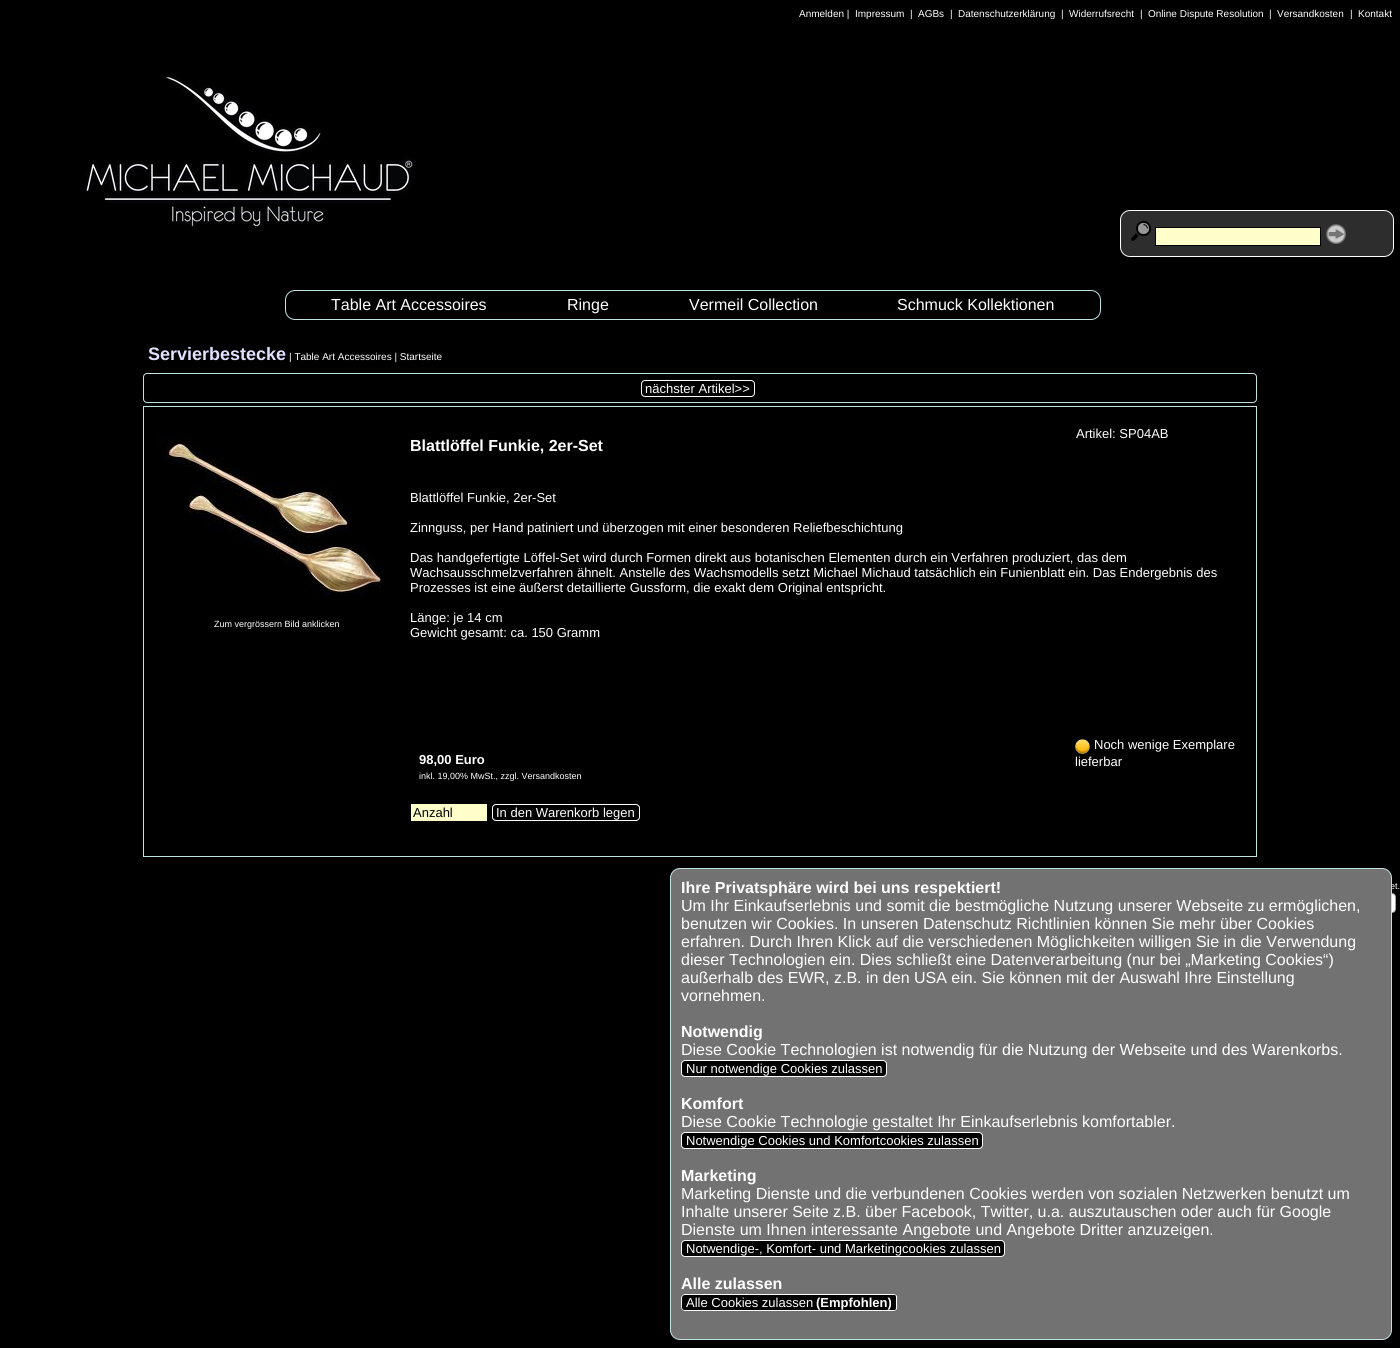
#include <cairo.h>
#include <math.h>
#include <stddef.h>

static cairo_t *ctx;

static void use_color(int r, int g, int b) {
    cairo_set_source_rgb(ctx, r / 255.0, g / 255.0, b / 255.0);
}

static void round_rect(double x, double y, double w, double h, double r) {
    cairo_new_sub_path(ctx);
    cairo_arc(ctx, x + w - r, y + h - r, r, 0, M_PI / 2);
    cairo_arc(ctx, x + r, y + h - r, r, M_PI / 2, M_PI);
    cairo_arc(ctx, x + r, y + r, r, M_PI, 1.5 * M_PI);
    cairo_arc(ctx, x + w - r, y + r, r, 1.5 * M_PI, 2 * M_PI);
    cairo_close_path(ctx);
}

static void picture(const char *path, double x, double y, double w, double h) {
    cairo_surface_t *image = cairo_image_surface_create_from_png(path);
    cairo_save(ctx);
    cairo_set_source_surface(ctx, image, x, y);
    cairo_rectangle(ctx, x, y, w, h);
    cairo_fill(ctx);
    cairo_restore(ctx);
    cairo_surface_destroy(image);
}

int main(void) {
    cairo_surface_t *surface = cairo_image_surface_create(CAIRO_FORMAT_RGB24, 1400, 1348);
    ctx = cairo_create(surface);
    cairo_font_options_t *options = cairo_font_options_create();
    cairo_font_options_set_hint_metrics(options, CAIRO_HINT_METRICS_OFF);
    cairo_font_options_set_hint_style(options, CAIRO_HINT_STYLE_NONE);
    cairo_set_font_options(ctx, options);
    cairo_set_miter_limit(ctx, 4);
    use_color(0, 0, 0);
    cairo_paint(ctx);
    cairo_select_font_face(ctx, "Liberation Sans", CAIRO_FONT_SLANT_NORMAL, CAIRO_FONT_WEIGHT_NORMAL);
    cairo_set_font_size(ctx, 10);
    use_color(255, 255, 255);
    cairo_move_to(ctx, 799, 17);
    cairo_show_text(ctx, "Anmelden |");
    cairo_move_to(ctx, 855, 17);
    cairo_show_text(ctx, "Impressum");
    cairo_move_to(ctx, 910, 17);
    cairo_show_text(ctx, "|");
    cairo_move_to(ctx, 918, 17);
    cairo_show_text(ctx, "AGBs");
    cairo_move_to(ctx, 950, 17);
    cairo_show_text(ctx, "|");
    cairo_move_to(ctx, 958, 17);
    cairo_show_text(ctx, "Datenschutzerklärung");
    cairo_move_to(ctx, 1061, 17);
    cairo_show_text(ctx, "|");
    cairo_move_to(ctx, 1069, 17);
    cairo_show_text(ctx, "Widerrufsrecht");
    cairo_move_to(ctx, 1140, 17);
    cairo_show_text(ctx, "|");
    cairo_move_to(ctx, 1148, 17);
    cairo_show_text(ctx, "Online Dispute Resolution");
    cairo_move_to(ctx, 1269, 17);
    cairo_show_text(ctx, "|");
    cairo_move_to(ctx, 1277, 17);
    cairo_show_text(ctx, "Versandkosten");
    cairo_move_to(ctx, 1350, 17);
    cairo_show_text(ctx, "|");
    cairo_move_to(ctx, 1358, 17);
    cairo_show_text(ctx, "Kontakt");
    picture("img1.png", 0, 24, 1400, 250);
    use_color(45, 45, 45);
    round_rect(1120.5, 210.5, 273, 46, 9.5);
    cairo_fill_preserve(ctx);
    use_color(0, 0, 0);
    cairo_set_line_width(ctx, 1);
    cairo_stroke(ctx);
    round_rect(1120.5, 210.5, 273, 46, 9.5);
    use_color(255, 255, 255);
    cairo_stroke(ctx);
    picture("img2.png", 1131, 221, 20, 20);
    use_color(255, 255, 204);
    cairo_rectangle(ctx, 1155.5, 227.5, 165, 18);
    cairo_fill_preserve(ctx);
    use_color(0, 0, 0);
    cairo_stroke(ctx);
    picture("img3.png", 1326, 224, 20, 20);
    round_rect(285.5, 290.5, 815, 29, 9.5);
    use_color(194, 226, 224);
    cairo_stroke(ctx);
    cairo_set_font_size(ctx, 16);
    use_color(255, 255, 255);
    cairo_move_to(ctx, 331, 310);
    cairo_show_text(ctx, "Table Art Accessoires");
    cairo_move_to(ctx, 567, 310);
    cairo_show_text(ctx, "Ringe");
    cairo_move_to(ctx, 689, 310);
    cairo_show_text(ctx, "Vermeil Collection");
    cairo_move_to(ctx, 897, 310);
    cairo_show_text(ctx, "Schmuck Kollektionen");
    cairo_select_font_face(ctx, "Liberation Sans", CAIRO_FONT_SLANT_NORMAL, CAIRO_FONT_WEIGHT_BOLD);
    cairo_set_font_size(ctx, 18);
    use_color(224, 224, 255);
    cairo_move_to(ctx, 148, 360);
    cairo_show_text(ctx, "Servierbestecke");
    cairo_select_font_face(ctx, "Liberation Sans", CAIRO_FONT_SLANT_NORMAL, CAIRO_FONT_WEIGHT_NORMAL);
    cairo_set_font_size(ctx, 10);
    use_color(255, 255, 255);
    cairo_move_to(ctx, 289, 360);
    cairo_show_text(ctx, "| Table Art Accessoires | Startseite");
    round_rect(143.5, 373.5, 1113, 29, 3.5);
    use_color(194, 226, 224);
    cairo_stroke(ctx);
    round_rect(641.5, 380.5, 113, 16, 3.5);
    use_color(255, 255, 255);
    cairo_stroke(ctx);
    cairo_set_font_size(ctx, 13);
    cairo_move_to(ctx, 645, 393);
    cairo_show_text(ctx, "nächster Artikel>>");
    cairo_rectangle(ctx, 143.5, 406.5, 1113, 450);
    use_color(194, 226, 224);
    cairo_stroke(ctx);
    picture("img4.png", 157, 435, 225, 160);
    cairo_set_font_size(ctx, 9);
    use_color(255, 255, 255);
    cairo_move_to(ctx, 214, 627);
    cairo_show_text(ctx, "Zum vergrössern Bild anklicken");
    cairo_set_font_size(ctx, 13);
    cairo_move_to(ctx, 1076, 438);
    cairo_show_text(ctx, "Artikel: SP04AB");
    cairo_select_font_face(ctx, "Liberation Sans", CAIRO_FONT_SLANT_NORMAL, CAIRO_FONT_WEIGHT_BOLD);
    cairo_set_font_size(ctx, 16);
    cairo_move_to(ctx, 410, 451);
    cairo_show_text(ctx, "Blattlöffel Funkie, 2er-Set");
    cairo_select_font_face(ctx, "Liberation Sans", CAIRO_FONT_SLANT_NORMAL, CAIRO_FONT_WEIGHT_NORMAL);
    cairo_set_font_size(ctx, 13);
    cairo_move_to(ctx, 410, 502);
    cairo_show_text(ctx, "Blattlöffel Funkie, 2er-Set");
    cairo_move_to(ctx, 410, 532);
    cairo_show_text(ctx, "Zinnguss, per Hand patiniert und überzogen mit einer besonderen Reliefbeschichtung");
    cairo_move_to(ctx, 410, 562);
    cairo_show_text(ctx, "Das handgefertigte Löffel-Set wird durch Formen direkt aus botanischen Elementen durch ein Verfahren produziert, das dem");
    cairo_move_to(ctx, 410, 577);
    cairo_show_text(ctx, "Wachsausschmelzverfahren ähnelt. Anstelle des Wachsmodells setzt Michael Michaud tatsächlich ein Funienblatt ein. Das Endergebnis des");
    cairo_move_to(ctx, 410, 592);
    cairo_show_text(ctx, "Prozesses ist eine äußerst detaillierte Gussform, die exakt dem Original entspricht.");
    cairo_move_to(ctx, 410, 622);
    cairo_show_text(ctx, "Länge: je 14 cm");
    cairo_move_to(ctx, 410, 637);
    cairo_show_text(ctx, "Gewicht gesamt: ca. 150 Gramm");
    cairo_select_font_face(ctx, "Liberation Sans", CAIRO_FONT_SLANT_NORMAL, CAIRO_FONT_WEIGHT_BOLD);
    cairo_move_to(ctx, 419, 764);
    cairo_show_text(ctx, "98,00 Euro");
    cairo_select_font_face(ctx, "Liberation Sans", CAIRO_FONT_SLANT_NORMAL, CAIRO_FONT_WEIGHT_NORMAL);
    cairo_set_font_size(ctx, 9);
    cairo_move_to(ctx, 419, 779);
    cairo_show_text(ctx, "inkl. 19,00% MwSt., zzgl. Versandkosten");
    picture("img5.png", 1075, 739, 15, 15);
    cairo_set_font_size(ctx, 13);
    cairo_move_to(ctx, 1094, 749);
    cairo_show_text(ctx, "Noch wenige Exemplare");
    cairo_move_to(ctx, 1075, 766);
    cairo_show_text(ctx, "lieferbar");
    use_color(255, 255, 204);
    cairo_rectangle(ctx, 411, 804, 76, 17);
    cairo_fill(ctx);
    use_color(0, 0, 0);
    cairo_move_to(ctx, 413, 817);
    cairo_show_text(ctx, "Anzahl");
    round_rect(492.5, 804.5, 147, 16, 3.5);
    use_color(255, 255, 255);
    cairo_stroke(ctx);
    cairo_move_to(ctx, 496, 817);
    cairo_show_text(ctx, "In den Warenkorb legen");
    cairo_set_font_size(ctx, 9);
    cairo_move_to(ctx, 1390, 889);
    cairo_show_text(ctx, "et.");
    use_color(114, 114, 114);
    round_rect(670.5, 868.5, 721, 471, 9.5);
    cairo_fill_preserve(ctx);
    use_color(194, 226, 224);
    cairo_stroke(ctx);
    cairo_select_font_face(ctx, "Liberation Sans", CAIRO_FONT_SLANT_NORMAL, CAIRO_FONT_WEIGHT_BOLD);
    cairo_set_font_size(ctx, 16);
    use_color(255, 255, 255);
    cairo_move_to(ctx, 681, 893);
    cairo_show_text(ctx, "Ihre Privatsphäre wird bei uns respektiert!");
    cairo_select_font_face(ctx, "Liberation Sans", CAIRO_FONT_SLANT_NORMAL, CAIRO_FONT_WEIGHT_NORMAL);
    cairo_move_to(ctx, 681, 911);
    cairo_show_text(ctx, "Um Ihr Einkaufserlebnis und somit die bestmögliche Nutzung unserer Webseite zu ermöglichen,");
    cairo_move_to(ctx, 681, 929);
    cairo_show_text(ctx, "benutzen wir Cookies. In unseren Datenschutz Richtlinien können Sie mehr über Cookies");
    cairo_move_to(ctx, 681, 947);
    cairo_show_text(ctx, "erfahren. Durch Ihren Klick auf die verschiedenen Möglichkeiten willigen Sie in die Verwendung");
    cairo_move_to(ctx, 681, 965);
    cairo_show_text(ctx, "dieser Technologien ein. Dies schließt eine Datenverarbeitung (nur bei „Marketing Cookies“)");
    cairo_move_to(ctx, 681, 983);
    cairo_show_text(ctx, "außerhalb des EWR, z.B. in den USA ein. Sie können mit der Auswahl Ihre Einstellung");
    cairo_move_to(ctx, 681, 1001);
    cairo_show_text(ctx, "vornehmen.");
    cairo_select_font_face(ctx, "Liberation Sans", CAIRO_FONT_SLANT_NORMAL, CAIRO_FONT_WEIGHT_BOLD);
    cairo_move_to(ctx, 681, 1037);
    cairo_show_text(ctx, "Notwendig");
    cairo_select_font_face(ctx, "Liberation Sans", CAIRO_FONT_SLANT_NORMAL, CAIRO_FONT_WEIGHT_NORMAL);
    cairo_move_to(ctx, 681, 1055);
    cairo_show_text(ctx, "Diese Cookie Technologien ist notwendig für die Nutzung der Webseite und des Warenkorbs.");
    use_color(0, 0, 0);
    round_rect(681.5, 1060.5, 205, 16, 3.5);
    cairo_fill_preserve(ctx);
    use_color(255, 255, 255);
    cairo_stroke(ctx);
    cairo_set_font_size(ctx, 13);
    cairo_move_to(ctx, 686, 1073);
    cairo_show_text(ctx, "Nur notwendige Cookies zulassen");
    cairo_select_font_face(ctx, "Liberation Sans", CAIRO_FONT_SLANT_NORMAL, CAIRO_FONT_WEIGHT_BOLD);
    cairo_set_font_size(ctx, 16);
    cairo_move_to(ctx, 681, 1109);
    cairo_show_text(ctx, "Komfort");
    cairo_select_font_face(ctx, "Liberation Sans", CAIRO_FONT_SLANT_NORMAL, CAIRO_FONT_WEIGHT_NORMAL);
    cairo_move_to(ctx, 681, 1127);
    cairo_show_text(ctx, "Diese Cookie Technologie gestaltet Ihr Einkaufserlebnis komfortabler.");
    use_color(0, 0, 0);
    round_rect(681.5, 1132.5, 301, 16, 3.5);
    cairo_fill_preserve(ctx);
    use_color(255, 255, 255);
    cairo_stroke(ctx);
    cairo_set_font_size(ctx, 13);
    cairo_move_to(ctx, 686, 1145);
    cairo_show_text(ctx, "Notwendige Cookies und Komfortcookies zulassen");
    cairo_select_font_face(ctx, "Liberation Sans", CAIRO_FONT_SLANT_NORMAL, CAIRO_FONT_WEIGHT_BOLD);
    cairo_set_font_size(ctx, 16);
    cairo_move_to(ctx, 681, 1181);
    cairo_show_text(ctx, "Marketing");
    cairo_select_font_face(ctx, "Liberation Sans", CAIRO_FONT_SLANT_NORMAL, CAIRO_FONT_WEIGHT_NORMAL);
    cairo_move_to(ctx, 681, 1199);
    cairo_show_text(ctx, "Marketing Dienste und die verbundenen Cookies werden von sozialen Netzwerken benutzt um");
    cairo_move_to(ctx, 681, 1217);
    cairo_show_text(ctx, "Inhalte unserer Seite z.B. über Facebook, Twitter, u.a. auszutauschen oder auch für Google");
    cairo_move_to(ctx, 681, 1235);
    cairo_show_text(ctx, "Dienste um Ihnen interessante Angebote und Angebote Dritter anzuzeigen.");
    use_color(0, 0, 0);
    round_rect(681.5, 1240.5, 323, 16, 3.5);
    cairo_fill_preserve(ctx);
    use_color(255, 255, 255);
    cairo_stroke(ctx);
    cairo_set_font_size(ctx, 13);
    cairo_move_to(ctx, 686, 1253);
    cairo_show_text(ctx, "Notwendige-, Komfort- und Marketingcookies zulassen");
    cairo_select_font_face(ctx, "Liberation Sans", CAIRO_FONT_SLANT_NORMAL, CAIRO_FONT_WEIGHT_BOLD);
    cairo_set_font_size(ctx, 16);
    cairo_move_to(ctx, 681, 1289);
    cairo_show_text(ctx, "Alle zulassen");
    use_color(0, 0, 0);
    cairo_new_path(ctx);
    cairo_move_to(ctx, 685, 1294);
    cairo_line_to(ctx, 816, 1294);
    cairo_line_to(ctx, 816, 1311);
    cairo_line_to(ctx, 685, 1311);
    cairo_curve_to(ctx, 683, 1311, 681, 1309, 681, 1307);
    cairo_line_to(ctx, 681, 1298);
    cairo_curve_to(ctx, 681, 1296, 683, 1294, 685, 1294);
    cairo_close_path(ctx);
    cairo_fill(ctx);
    use_color(255, 255, 255);
    cairo_set_fill_rule(ctx, CAIRO_FILL_RULE_EVEN_ODD);
    cairo_new_path(ctx);
    cairo_move_to(ctx, 685, 1294);
    cairo_line_to(ctx, 816, 1294);
    cairo_line_to(ctx, 816, 1311);
    cairo_line_to(ctx, 685, 1311);
    cairo_curve_to(ctx, 683, 1311, 681, 1309, 681, 1307);
    cairo_line_to(ctx, 681, 1298);
    cairo_curve_to(ctx, 681, 1296, 683, 1294, 685, 1294);
    cairo_close_path(ctx);
    cairo_move_to(ctx, 685, 1295);
    cairo_line_to(ctx, 816, 1295);
    cairo_line_to(ctx, 816, 1310);
    cairo_line_to(ctx, 684, 1310);
    cairo_curve_to(ctx, 681, 1309, 682, 1305, 682, 1302);
    cairo_curve_to(ctx, 682, 1300, 681, 1295, 685, 1295);
    cairo_close_path(ctx);
    cairo_fill(ctx);
    cairo_select_font_face(ctx, "Liberation Sans", CAIRO_FONT_SLANT_NORMAL, CAIRO_FONT_WEIGHT_NORMAL);
    cairo_set_font_size(ctx, 13);
    cairo_move_to(ctx, 686, 1307);
    cairo_show_text(ctx, "Alle Cookies zulassen");
    use_color(0, 0, 0);
    cairo_rectangle(ctx, 816, 1295, 76, 15);
    cairo_fill(ctx);
    cairo_select_font_face(ctx, "Liberation Sans", CAIRO_FONT_SLANT_NORMAL, CAIRO_FONT_WEIGHT_BOLD);
    use_color(255, 255, 255);
    cairo_move_to(ctx, 816, 1307);
    cairo_show_text(ctx, "(Empfohlen)");
    cairo_rectangle(ctx, 816, 1294, 76, 1);
    cairo_fill(ctx);
    cairo_rectangle(ctx, 816, 1310, 76, 1);
    cairo_fill(ctx);
    use_color(0, 0, 0);
    cairo_new_path(ctx);
    cairo_move_to(ctx, 892, 1294);
    cairo_line_to(ctx, 894.5, 1294);
    cairo_curve_to(ctx, 896, 1294, 897, 1295, 897, 1296.5);
    cairo_line_to(ctx, 897, 1308.5);
    cairo_curve_to(ctx, 897, 1310, 896, 1311, 894.5, 1311);
    cairo_line_to(ctx, 892, 1311);
    cairo_close_path(ctx);
    cairo_fill(ctx);
    use_color(255, 255, 255);
    cairo_new_path(ctx);
    cairo_move_to(ctx, 892, 1294);
    cairo_curve_to(ctx, 898.5, 1294, 897, 1296, 897, 1302.5);
    cairo_curve_to(ctx, 897, 1309, 898.5, 1311, 892, 1311);
    cairo_close_path(ctx);
    cairo_move_to(ctx, 892, 1295);
    cairo_curve_to(ctx, 895.5, 1295, 896, 1294.5, 896, 1298.5);
    cairo_line_to(ctx, 896, 1306.5);
    cairo_curve_to(ctx, 896, 1310.5, 895.5, 1310, 892, 1310);
    cairo_close_path(ctx);
    cairo_fill(ctx);
    picture("img6.png", 1392, 893, 4, 20);
    cairo_surface_write_to_png(surface, "result.png");
    cairo_font_options_destroy(options);
    cairo_destroy(ctx);
    cairo_surface_destroy(surface);
    return 0;
}
